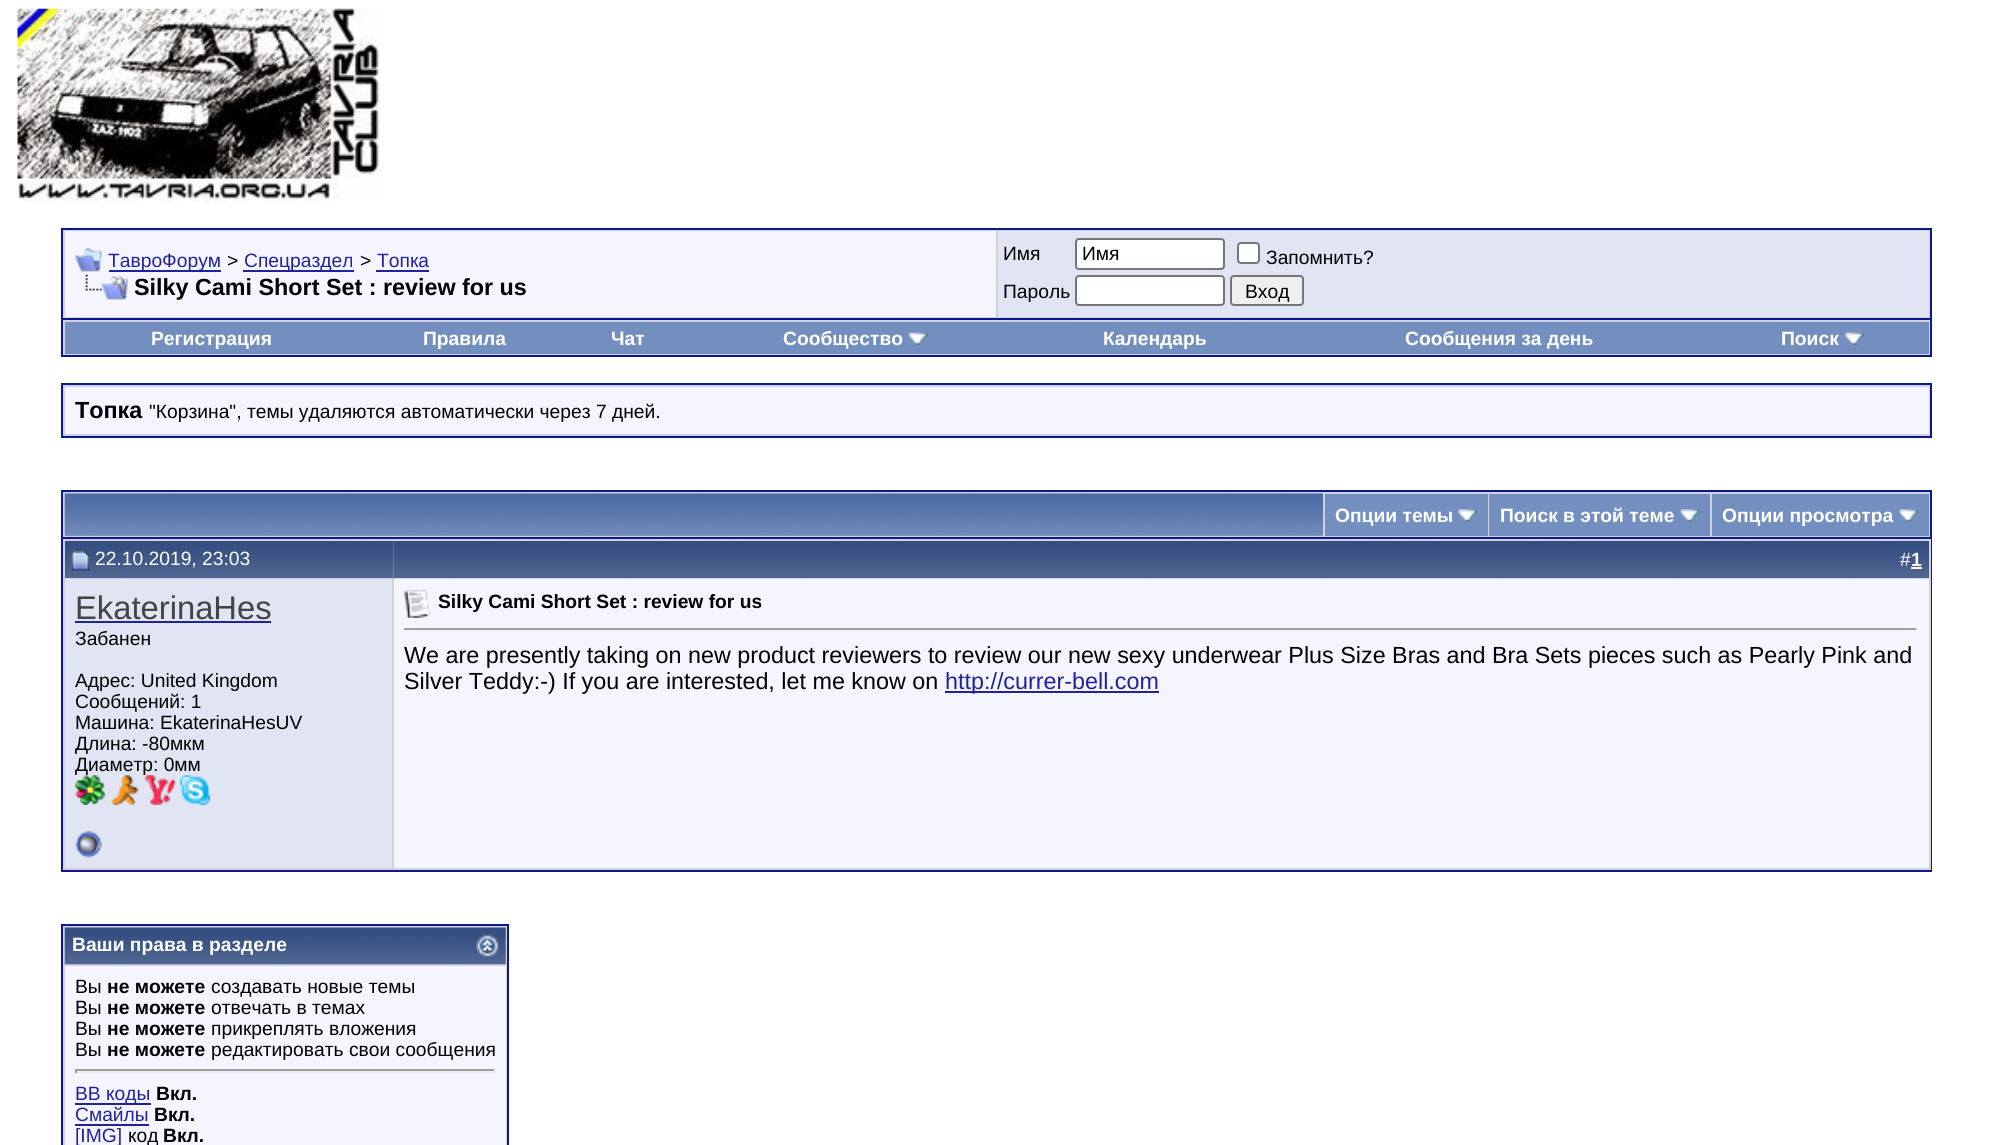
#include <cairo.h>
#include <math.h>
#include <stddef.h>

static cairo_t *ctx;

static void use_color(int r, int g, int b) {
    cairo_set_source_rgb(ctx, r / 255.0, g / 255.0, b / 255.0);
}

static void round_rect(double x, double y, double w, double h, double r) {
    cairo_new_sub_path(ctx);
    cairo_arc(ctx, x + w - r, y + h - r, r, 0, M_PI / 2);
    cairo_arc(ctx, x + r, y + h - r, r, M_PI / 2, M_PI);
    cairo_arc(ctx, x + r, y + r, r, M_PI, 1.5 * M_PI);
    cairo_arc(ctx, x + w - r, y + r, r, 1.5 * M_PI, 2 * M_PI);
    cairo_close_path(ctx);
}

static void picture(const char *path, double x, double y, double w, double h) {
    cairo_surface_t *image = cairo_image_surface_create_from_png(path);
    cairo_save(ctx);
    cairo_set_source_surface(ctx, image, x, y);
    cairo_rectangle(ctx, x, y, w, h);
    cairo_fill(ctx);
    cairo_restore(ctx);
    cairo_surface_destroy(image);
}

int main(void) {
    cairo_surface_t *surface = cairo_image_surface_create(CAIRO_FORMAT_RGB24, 1993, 1145);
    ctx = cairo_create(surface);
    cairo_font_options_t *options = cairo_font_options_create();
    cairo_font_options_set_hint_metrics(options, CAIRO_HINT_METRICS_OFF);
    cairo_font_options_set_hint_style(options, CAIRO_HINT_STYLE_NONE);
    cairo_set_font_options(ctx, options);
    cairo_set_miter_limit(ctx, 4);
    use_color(255, 255, 255);
    cairo_paint(ctx);
    picture("img1.png", 17, 8, 363, 194);
    use_color(209, 209, 225);
    cairo_rectangle(ctx, 62, 229, 1869, 90);
    cairo_fill_preserve(ctx);
    use_color(11, 25, 140);
    cairo_stroke(ctx);
    use_color(245, 245, 255);
    cairo_rectangle(ctx, 65, 231, 931, 86);
    cairo_fill(ctx);
    picture("img2.png", 75, 248, 27, 24);
    use_color(34, 34, 156);
    cairo_rectangle(ctx, 109, 270, 112, 2);
    cairo_fill(ctx);
    cairo_select_font_face(ctx, "Liberation Sans", CAIRO_FONT_SLANT_NORMAL, CAIRO_FONT_WEIGHT_NORMAL);
    cairo_set_font_size(ctx, 19.25);
    cairo_move_to(ctx, 108, 267);
    cairo_show_text(ctx, "ТавроФорум");
    use_color(0, 0, 0);
    cairo_move_to(ctx, 227, 267);
    cairo_show_text(ctx, ">");
    use_color(34, 34, 156);
    cairo_rectangle(ctx, 243, 270, 111, 2);
    cairo_fill(ctx);
    cairo_move_to(ctx, 244, 267);
    cairo_show_text(ctx, "Спецраздел");
    use_color(0, 0, 0);
    cairo_move_to(ctx, 360, 267);
    cairo_show_text(ctx, ">");
    use_color(34, 34, 156);
    cairo_move_to(ctx, 377, 267);
    cairo_show_text(ctx, "Топка");
    cairo_rectangle(ctx, 376, 270, 53, 2);
    cairo_fill(ctx);
    picture("img3.png", 85, 274, 43, 26);
    cairo_select_font_face(ctx, "Liberation Sans", CAIRO_FONT_SLANT_NORMAL, CAIRO_FONT_WEIGHT_BOLD);
    cairo_set_font_size(ctx, 23.33);
    use_color(0, 0, 0);
    cairo_move_to(ctx, 134, 295);
    cairo_show_text(ctx, "Silky Cami Short Set : review for us");
    use_color(225, 228, 242);
    cairo_rectangle(ctx, 998, 231, 931, 86);
    cairo_fill(ctx);
    cairo_select_font_face(ctx, "Liberation Sans", CAIRO_FONT_SLANT_NORMAL, CAIRO_FONT_WEIGHT_NORMAL);
    cairo_set_font_size(ctx, 19.25);
    use_color(0, 0, 0);
    cairo_move_to(ctx, 1003, 260);
    cairo_show_text(ctx, "Имя");
    use_color(255, 255, 255);
    round_rect(1076, 239, 148, 30, 3);
    cairo_fill_preserve(ctx);
    use_color(118, 118, 118);
    cairo_stroke(ctx);
    use_color(0, 0, 0);
    cairo_move_to(ctx, 1082, 260);
    cairo_show_text(ctx, "Имя");
    use_color(255, 255, 255);
    round_rect(1238, 243, 21, 20, 3);
    cairo_fill_preserve(ctx);
    use_color(118, 118, 118);
    cairo_stroke(ctx);
    use_color(0, 0, 0);
    cairo_move_to(ctx, 1266, 264);
    cairo_show_text(ctx, "Запомнить?");
    cairo_move_to(ctx, 1003, 298);
    cairo_show_text(ctx, "Пароль");
    use_color(255, 255, 255);
    round_rect(1076, 276, 148, 29, 3);
    cairo_fill_preserve(ctx);
    use_color(118, 118, 118);
    cairo_stroke(ctx);
    use_color(239, 239, 239);
    round_rect(1231, 276, 72, 29, 3);
    cairo_fill_preserve(ctx);
    use_color(118, 118, 118);
    cairo_stroke(ctx);
    use_color(0, 0, 0);
    cairo_move_to(ctx, 1245, 298);
    cairo_show_text(ctx, "Вход");
    use_color(209, 209, 225);
    cairo_rectangle(ctx, 63, 320, 1867, 35);
    cairo_fill(ctx);
    use_color(11, 25, 140);
    cairo_rectangle(ctx, 1930, 320, 2, 37);
    cairo_fill(ctx);
    cairo_rectangle(ctx, 61, 355, 1871, 2);
    cairo_fill(ctx);
    cairo_rectangle(ctx, 61, 320, 2, 37);
    cairo_fill(ctx);
    use_color(115, 143, 191);
    cairo_rectangle(ctx, 65, 322, 1864, 32);
    cairo_fill(ctx);
    cairo_select_font_face(ctx, "Liberation Sans", CAIRO_FONT_SLANT_NORMAL, CAIRO_FONT_WEIGHT_BOLD);
    use_color(255, 255, 255);
    cairo_move_to(ctx, 151, 345);
    cairo_show_text(ctx, "Регистрация");
    cairo_move_to(ctx, 423, 345);
    cairo_show_text(ctx, "Правила");
    cairo_move_to(ctx, 611, 345);
    cairo_show_text(ctx, "Чат");
    cairo_move_to(ctx, 783, 345);
    cairo_show_text(ctx, "Сообщество");
    picture("img4.png", 908, 332, 20, 13);
    cairo_move_to(ctx, 1103, 345);
    cairo_show_text(ctx, "Календарь");
    cairo_move_to(ctx, 1405, 345);
    cairo_show_text(ctx, "Сообщения за день");
    cairo_move_to(ctx, 1781, 345);
    cairo_show_text(ctx, "Поиск");
    picture("img5.png", 1844, 332, 20, 13);
    use_color(209, 209, 225);
    cairo_rectangle(ctx, 62, 384, 1869, 53);
    cairo_fill_preserve(ctx);
    use_color(11, 25, 140);
    cairo_stroke(ctx);
    use_color(245, 245, 255);
    cairo_rectangle(ctx, 65, 387, 1864, 47);
    cairo_fill(ctx);
    cairo_set_font_size(ctx, 23.33);
    use_color(0, 0, 0);
    cairo_move_to(ctx, 75, 418);
    cairo_show_text(ctx, "Топка");
    cairo_select_font_face(ctx, "Liberation Sans", CAIRO_FONT_SLANT_NORMAL, CAIRO_FONT_WEIGHT_NORMAL);
    cairo_set_font_size(ctx, 19.25);
    cairo_move_to(ctx, 149, 418);
    cairo_show_text(ctx, "\"Корзина\", темы удаляются автоматически через 7 дней.");
    use_color(209, 209, 225);
    cairo_rectangle(ctx, 63, 492, 1867, 45);
    cairo_fill(ctx);
    use_color(11, 25, 140);
    cairo_rectangle(ctx, 61, 490, 1871, 2);
    cairo_fill(ctx);
    cairo_rectangle(ctx, 1930, 490, 2, 47);
    cairo_fill(ctx);
    cairo_rectangle(ctx, 61, 490, 2, 47);
    cairo_fill(ctx);
    use_color(134, 155, 191);
    cairo_rectangle(ctx, 65, 535, 1258, 1);
    cairo_fill(ctx);
    picture("img6.png", 64, 493, 1259, 43);
    use_color(115, 143, 191);
    cairo_rectangle(ctx, 1325, 494, 163, 42);
    cairo_fill(ctx);
    cairo_select_font_face(ctx, "Liberation Sans", CAIRO_FONT_SLANT_NORMAL, CAIRO_FONT_WEIGHT_BOLD);
    use_color(255, 255, 255);
    cairo_move_to(ctx, 1335, 522);
    cairo_show_text(ctx, "Опции темы");
    picture("img7.png", 1457, 509, 20, 13);
    use_color(115, 143, 191);
    cairo_rectangle(ctx, 1489, 494, 221, 42);
    cairo_fill(ctx);
    use_color(255, 255, 255);
    cairo_move_to(ctx, 1500, 522);
    cairo_show_text(ctx, "Поиск в этой теме");
    picture("img8.png", 1680, 509, 20, 13);
    use_color(115, 143, 191);
    cairo_rectangle(ctx, 1712, 494, 217, 42);
    cairo_fill(ctx);
    use_color(255, 255, 255);
    cairo_move_to(ctx, 1722, 522);
    cairo_show_text(ctx, "Опции просмотра");
    picture("img9.png", 1898, 509, 20, 13);
    cairo_rectangle(ctx, 62, 538, 1869, 333);
    use_color(11, 25, 140);
    cairo_stroke(ctx);
    picture("img10.png", 65, 541, 329, 37);
    use_color(209, 209, 225);
    cairo_rectangle(ctx, 63, 539, 331, 2);
    cairo_fill(ctx);
    cairo_rectangle(ctx, 63, 578, 331, 1);
    cairo_fill(ctx);
    cairo_rectangle(ctx, 63, 539, 2, 280);
    cairo_fill(ctx);
    picture("img11.png", 71, 551, 19, 20);
    cairo_select_font_face(ctx, "Liberation Sans", CAIRO_FONT_SLANT_NORMAL, CAIRO_FONT_WEIGHT_NORMAL);
    use_color(255, 255, 255);
    cairo_move_to(ctx, 95, 565);
    cairo_show_text(ctx, "22.10.2019, 23:03");
    picture("img12.png", 393, 540, 1536, 39);
    use_color(209, 209, 225);
    cairo_rectangle(ctx, 394, 539, 1536, 2);
    cairo_fill(ctx);
    cairo_rectangle(ctx, 1929, 539, 2, 331);
    cairo_fill(ctx);
    cairo_rectangle(ctx, 394, 578, 1536, 1);
    cairo_fill(ctx);
    use_color(255, 255, 255);
    cairo_move_to(ctx, 1900, 566);
    cairo_show_text(ctx, "#");
    cairo_select_font_face(ctx, "Liberation Sans", CAIRO_FONT_SLANT_NORMAL, CAIRO_FONT_WEIGHT_BOLD);
    cairo_move_to(ctx, 1911, 566);
    cairo_show_text(ctx, "1");
    cairo_rectangle(ctx, 1911, 567, 11, 2);
    cairo_fill(ctx);
    use_color(225, 228, 242);
    cairo_rectangle(ctx, 65, 579, 327, 289);
    cairo_fill(ctx);
    use_color(209, 209, 225);
    cairo_rectangle(ctx, 392, 579, 2, 291);
    cairo_fill(ctx);
    cairo_select_font_face(ctx, "Liberation Sans", CAIRO_FONT_SLANT_NORMAL, CAIRO_FONT_WEIGHT_NORMAL);
    cairo_set_font_size(ctx, 32.75);
    use_color(68, 68, 68);
    cairo_move_to(ctx, 75, 619);
    cairo_show_text(ctx, "EkaterinaHes");
    use_color(34, 34, 156);
    cairo_rectangle(ctx, 75, 621, 196, 2);
    cairo_fill(ctx);
    cairo_set_font_size(ctx, 19.25);
    use_color(0, 0, 0);
    cairo_move_to(ctx, 75, 645);
    cairo_show_text(ctx, "Забанен");
    cairo_move_to(ctx, 75, 687);
    cairo_show_text(ctx, "Адрес: United Kingdom");
    cairo_move_to(ctx, 75, 708);
    cairo_show_text(ctx, "Сообщений: 1");
    cairo_move_to(ctx, 75, 729);
    cairo_show_text(ctx, "Машина: EkaterinaHesUV");
    cairo_move_to(ctx, 75, 750);
    cairo_show_text(ctx, "Длина: -80мкм");
    cairo_move_to(ctx, 75, 771);
    cairo_show_text(ctx, "Диаметр: 0мм");
    picture("img13.png", 75, 775, 30, 30);
    picture("img14.png", 111, 775, 28, 30);
    picture("img15.png", 145, 775, 30, 30);
    picture("img16.png", 180, 775, 30, 30);
    use_color(245, 245, 255);
    cairo_rectangle(ctx, 394, 579, 1535, 289);
    cairo_fill(ctx);
    picture("img17.png", 404, 589, 27, 29);
    cairo_select_font_face(ctx, "Liberation Sans", CAIRO_FONT_SLANT_NORMAL, CAIRO_FONT_WEIGHT_BOLD);
    use_color(0, 0, 0);
    cairo_move_to(ctx, 438, 608);
    cairo_show_text(ctx, "Silky Cami Short Set : review for us");
    use_color(159, 159, 159);
    cairo_rectangle(ctx, 404, 628, 1514, 2);
    cairo_fill(ctx);
    use_color(238, 238, 238);
    cairo_rectangle(ctx, 1916, 628, 2, 2);
    cairo_fill(ctx);
    cairo_select_font_face(ctx, "Liberation Sans", CAIRO_FONT_SLANT_NORMAL, CAIRO_FONT_WEIGHT_NORMAL);
    cairo_set_font_size(ctx, 23.33);
    use_color(0, 0, 0);
    cairo_move_to(ctx, 404, 663);
    cairo_show_text(ctx, "We are presently taking on new product reviewers to review our new sexy underwear Plus Size Bras and Bra Sets pieces such as Pearly Pink and");
    cairo_move_to(ctx, 404, 689);
    cairo_show_text(ctx, "Silver Teddy:-) If you are interested, let me know on");
    use_color(34, 34, 156);
    cairo_rectangle(ctx, 945, 691, 214, 2);
    cairo_fill(ctx);
    cairo_move_to(ctx, 945, 689);
    cairo_show_text(ctx, "http://currer-bell.com");
    use_color(209, 209, 225);
    cairo_rectangle(ctx, 63, 868, 1867, 2);
    cairo_fill(ctx);
    cairo_rectangle(ctx, 63, 819, 2, 51);
    cairo_fill(ctx);
    picture("img18.png", 75, 831, 27, 27);
    cairo_rectangle(ctx, 62, 925, 446, 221);
    cairo_fill_preserve(ctx);
    use_color(11, 25, 140);
    cairo_stroke(ctx);
    picture("img19.png", 64, 927, 442, 38);
    cairo_select_font_face(ctx, "Liberation Sans", CAIRO_FONT_SLANT_NORMAL, CAIRO_FONT_WEIGHT_BOLD);
    cairo_set_font_size(ctx, 19.25);
    use_color(255, 255, 255);
    cairo_move_to(ctx, 72, 951);
    cairo_show_text(ctx, "Ваши права в разделе");
    picture("img20.png", 476, 934, 23, 24);
    use_color(245, 245, 255);
    cairo_rectangle(ctx, 65, 966, 441, 179);
    cairo_fill(ctx);
    cairo_select_font_face(ctx, "Liberation Sans", CAIRO_FONT_SLANT_NORMAL, CAIRO_FONT_WEIGHT_NORMAL);
    use_color(0, 0, 0);
    cairo_move_to(ctx, 75, 993);
    cairo_show_text(ctx, "Вы");
    cairo_select_font_face(ctx, "Liberation Sans", CAIRO_FONT_SLANT_NORMAL, CAIRO_FONT_WEIGHT_BOLD);
    cairo_move_to(ctx, 107, 993);
    cairo_show_text(ctx, "не можете");
    cairo_select_font_face(ctx, "Liberation Sans", CAIRO_FONT_SLANT_NORMAL, CAIRO_FONT_WEIGHT_NORMAL);
    cairo_move_to(ctx, 211, 993);
    cairo_show_text(ctx, "создавать новые темы");
    cairo_move_to(ctx, 75, 1014);
    cairo_show_text(ctx, "Вы");
    cairo_select_font_face(ctx, "Liberation Sans", CAIRO_FONT_SLANT_NORMAL, CAIRO_FONT_WEIGHT_BOLD);
    cairo_move_to(ctx, 107, 1014);
    cairo_show_text(ctx, "не можете");
    cairo_select_font_face(ctx, "Liberation Sans", CAIRO_FONT_SLANT_NORMAL, CAIRO_FONT_WEIGHT_NORMAL);
    cairo_move_to(ctx, 211, 1014);
    cairo_show_text(ctx, "отвечать в темах");
    cairo_move_to(ctx, 75, 1035);
    cairo_show_text(ctx, "Вы");
    cairo_select_font_face(ctx, "Liberation Sans", CAIRO_FONT_SLANT_NORMAL, CAIRO_FONT_WEIGHT_BOLD);
    cairo_move_to(ctx, 107, 1035);
    cairo_show_text(ctx, "не можете");
    cairo_select_font_face(ctx, "Liberation Sans", CAIRO_FONT_SLANT_NORMAL, CAIRO_FONT_WEIGHT_NORMAL);
    cairo_move_to(ctx, 211, 1035);
    cairo_show_text(ctx, "прикреплять вложения");
    cairo_move_to(ctx, 75, 1056);
    cairo_show_text(ctx, "Вы");
    cairo_select_font_face(ctx, "Liberation Sans", CAIRO_FONT_SLANT_NORMAL, CAIRO_FONT_WEIGHT_BOLD);
    cairo_move_to(ctx, 107, 1056);
    cairo_show_text(ctx, "не можете");
    cairo_select_font_face(ctx, "Liberation Sans", CAIRO_FONT_SLANT_NORMAL, CAIRO_FONT_WEIGHT_NORMAL);
    cairo_move_to(ctx, 211, 1056);
    cairo_show_text(ctx, "редактировать свои сообщения");
    use_color(159, 159, 159);
    cairo_rectangle(ctx, 75, 1069, 420, 2);
    cairo_fill(ctx);
    use_color(238, 238, 238);
    cairo_rectangle(ctx, 494, 1069, 2, 4);
    cairo_fill(ctx);
    cairo_rectangle(ctx, 75, 1071, 420, 2);
    cairo_fill(ctx);
    use_color(159, 159, 159);
    cairo_rectangle(ctx, 75, 1069, 2, 4);
    cairo_fill(ctx);
    use_color(34, 34, 156);
    cairo_rectangle(ctx, 75, 1103, 76, 2);
    cairo_fill(ctx);
    cairo_move_to(ctx, 75, 1100);
    cairo_show_text(ctx, "BB коды");
    cairo_select_font_face(ctx, "Liberation Sans", CAIRO_FONT_SLANT_NORMAL, CAIRO_FONT_WEIGHT_BOLD);
    use_color(0, 0, 0);
    cairo_move_to(ctx, 156, 1100);
    cairo_show_text(ctx, "Вкл.");
    cairo_select_font_face(ctx, "Liberation Sans", CAIRO_FONT_SLANT_NORMAL, CAIRO_FONT_WEIGHT_NORMAL);
    use_color(34, 34, 156);
    cairo_move_to(ctx, 75, 1121);
    cairo_show_text(ctx, "Смайлы");
    cairo_rectangle(ctx, 75, 1124, 74, 2);
    cairo_fill(ctx);
    cairo_select_font_face(ctx, "Liberation Sans", CAIRO_FONT_SLANT_NORMAL, CAIRO_FONT_WEIGHT_BOLD);
    use_color(0, 0, 0);
    cairo_move_to(ctx, 154, 1121);
    cairo_show_text(ctx, "Вкл.");
    cairo_select_font_face(ctx, "Liberation Sans", CAIRO_FONT_SLANT_NORMAL, CAIRO_FONT_WEIGHT_NORMAL);
    use_color(34, 34, 156);
    cairo_move_to(ctx, 75, 1142);
    cairo_show_text(ctx, "[IMG]");
    use_color(0, 0, 0);
    cairo_move_to(ctx, 128, 1142);
    cairo_show_text(ctx, "код");
    cairo_select_font_face(ctx, "Liberation Sans", CAIRO_FONT_SLANT_NORMAL, CAIRO_FONT_WEIGHT_BOLD);
    cairo_move_to(ctx, 163, 1142);
    cairo_show_text(ctx, "Вкл.");
    cairo_surface_write_to_png(surface, "result.png");
    cairo_font_options_destroy(options);
    cairo_destroy(ctx);
    cairo_surface_destroy(surface);
    return 0;
}
